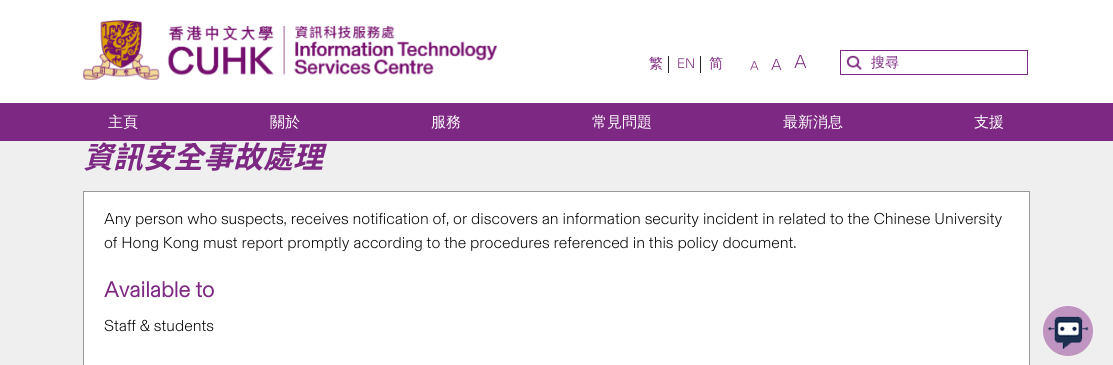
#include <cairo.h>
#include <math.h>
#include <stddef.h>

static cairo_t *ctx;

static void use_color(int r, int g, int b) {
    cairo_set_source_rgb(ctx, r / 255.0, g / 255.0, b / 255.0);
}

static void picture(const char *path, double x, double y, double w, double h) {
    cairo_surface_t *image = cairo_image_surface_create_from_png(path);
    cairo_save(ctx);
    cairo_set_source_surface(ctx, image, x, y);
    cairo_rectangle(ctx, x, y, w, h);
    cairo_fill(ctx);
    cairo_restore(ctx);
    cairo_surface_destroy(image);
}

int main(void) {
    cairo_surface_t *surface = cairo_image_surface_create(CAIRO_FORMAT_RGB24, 1113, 365);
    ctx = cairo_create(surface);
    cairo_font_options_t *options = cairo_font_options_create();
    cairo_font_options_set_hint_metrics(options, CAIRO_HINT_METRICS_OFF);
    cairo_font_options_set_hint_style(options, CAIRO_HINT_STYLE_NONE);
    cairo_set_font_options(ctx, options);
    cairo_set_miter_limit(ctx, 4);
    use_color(239, 239, 239);
    cairo_paint(ctx);
    use_color(255, 255, 255);
    cairo_rectangle(ctx, 0, 0, 1113, 103);
    cairo_fill(ctx);
    picture("img1.png", 83, 20, 414, 60);
    use_color(34, 34, 34);
    cairo_rectangle(ctx, 668, 56, 1, 17);
    cairo_fill(ctx);
    cairo_select_font_face(ctx, "WenQuanYi Zen Hei Medium", CAIRO_FONT_SLANT_NORMAL, CAIRO_FONT_WEIGHT_NORMAL);
    cairo_set_font_size(ctx, 14);
    use_color(125, 40, 130);
    cairo_move_to(ctx, 649, 68);
    cairo_show_text(ctx, "繁");
    use_color(34, 34, 34);
    cairo_rectangle(ctx, 700, 56, 1, 17);
    cairo_fill(ctx);
    cairo_select_font_face(ctx, "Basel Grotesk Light", CAIRO_FONT_SLANT_NORMAL, CAIRO_FONT_WEIGHT_NORMAL);
    use_color(125, 40, 130);
    cairo_move_to(ctx, 677, 68);
    cairo_show_text(ctx, "EN");
    cairo_select_font_face(ctx, "WenQuanYi Zen Hei Medium", CAIRO_FONT_SLANT_NORMAL, CAIRO_FONT_WEIGHT_NORMAL);
    cairo_move_to(ctx, 709, 68);
    cairo_show_text(ctx, "简");
    cairo_select_font_face(ctx, "Basel Grotesk Light", CAIRO_FONT_SLANT_NORMAL, CAIRO_FONT_WEIGHT_NORMAL);
    cairo_set_font_size(ctx, 13);
    cairo_move_to(ctx, 750, 70);
    cairo_show_text(ctx, "A");
    cairo_set_font_size(ctx, 16);
    cairo_move_to(ctx, 771, 70);
    cairo_show_text(ctx, "A");
    cairo_set_font_size(ctx, 19);
    cairo_move_to(ctx, 794, 68);
    cairo_show_text(ctx, "A");
    picture("img2.png", 846, 55, 16, 15);
    cairo_rectangle(ctx, 840.5, 50.5, 187, 24);
    cairo_set_line_width(ctx, 1);
    cairo_stroke(ctx);
    cairo_select_font_face(ctx, "WenQuanYi Zen Hei Medium", CAIRO_FONT_SLANT_NORMAL, CAIRO_FONT_WEIGHT_NORMAL);
    cairo_set_font_size(ctx, 14);
    cairo_move_to(ctx, 871, 67);
    cairo_show_text(ctx, "搜尋");
    cairo_rectangle(ctx, 0, 103, 1113, 38);
    cairo_fill(ctx);
    cairo_set_font_size(ctx, 15);
    use_color(255, 255, 255);
    cairo_move_to(ctx, 108, 127);
    cairo_show_text(ctx, "主頁");
    cairo_move_to(ctx, 270, 127);
    cairo_show_text(ctx, "關於");
    cairo_move_to(ctx, 431, 127);
    cairo_show_text(ctx, "服務");
    cairo_move_to(ctx, 592, 127);
    cairo_show_text(ctx, "常見問題");
    cairo_move_to(ctx, 783, 127);
    cairo_show_text(ctx, "最新消息");
    cairo_move_to(ctx, 974, 127);
    cairo_show_text(ctx, "支援");
    cairo_select_font_face(ctx, "Noto Sans TC", CAIRO_FONT_SLANT_ITALIC, CAIRO_FONT_WEIGHT_BOLD);
    cairo_set_font_size(ctx, 30);
    use_color(125, 40, 130);
    cairo_move_to(ctx, 83, 168);
    cairo_show_text(ctx, "資訊安全事故處理");
    use_color(255, 255, 255);
    cairo_rectangle(ctx, 83.5, 191.5, 946, 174);
    cairo_fill_preserve(ctx);
    use_color(153, 153, 153);
    cairo_stroke(ctx);
    cairo_select_font_face(ctx, "Basel Grotesk Light", CAIRO_FONT_SLANT_NORMAL, CAIRO_FONT_WEIGHT_NORMAL);
    cairo_set_font_size(ctx, 16);
    use_color(0, 0, 0);
    cairo_move_to(ctx, 104, 224);
    cairo_show_text(ctx, "Any person who suspects, receives notification of, or discovers an information security incident in related to the Chinese University");
    cairo_move_to(ctx, 104, 248);
    cairo_show_text(ctx, "of Hong Kong must report promptly according to the procedures referenced in this policy document.");
    cairo_select_font_face(ctx, "Basel Grotesk", CAIRO_FONT_SLANT_NORMAL, CAIRO_FONT_WEIGHT_BOLD);
    cairo_set_font_size(ctx, 22);
    use_color(125, 40, 130);
    cairo_move_to(ctx, 104, 297);
    cairo_show_text(ctx, "Available to");
    cairo_select_font_face(ctx, "Basel Grotesk Light", CAIRO_FONT_SLANT_NORMAL, CAIRO_FONT_WEIGHT_NORMAL);
    cairo_set_font_size(ctx, 16);
    use_color(0, 0, 0);
    cairo_move_to(ctx, 104, 331);
    cairo_show_text(ctx, "Staff & students");
    use_color(192, 148, 193);
    cairo_new_path(ctx);
    cairo_arc(ctx, 1068, 331, 25, 0, 2 * M_PI);
    cairo_fill(ctx);
    picture("img3.png", 1048, 316, 41, 33);
    cairo_surface_write_to_png(surface, "result.png");
    cairo_font_options_destroy(options);
    cairo_destroy(ctx);
    cairo_surface_destroy(surface);
    return 0;
}
